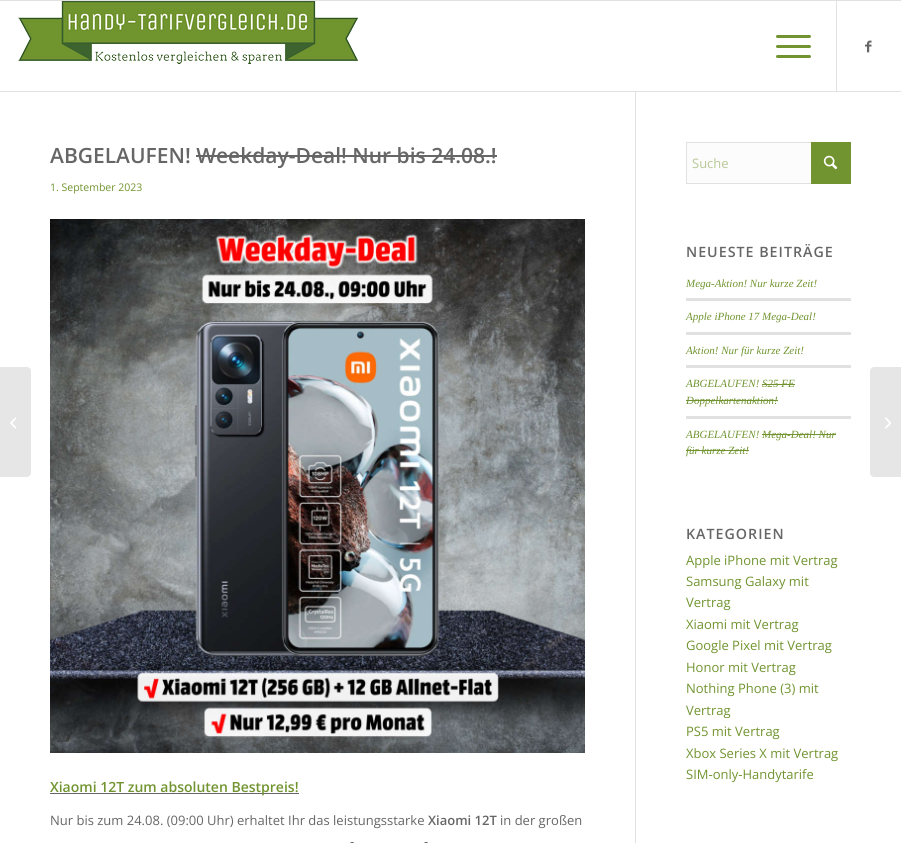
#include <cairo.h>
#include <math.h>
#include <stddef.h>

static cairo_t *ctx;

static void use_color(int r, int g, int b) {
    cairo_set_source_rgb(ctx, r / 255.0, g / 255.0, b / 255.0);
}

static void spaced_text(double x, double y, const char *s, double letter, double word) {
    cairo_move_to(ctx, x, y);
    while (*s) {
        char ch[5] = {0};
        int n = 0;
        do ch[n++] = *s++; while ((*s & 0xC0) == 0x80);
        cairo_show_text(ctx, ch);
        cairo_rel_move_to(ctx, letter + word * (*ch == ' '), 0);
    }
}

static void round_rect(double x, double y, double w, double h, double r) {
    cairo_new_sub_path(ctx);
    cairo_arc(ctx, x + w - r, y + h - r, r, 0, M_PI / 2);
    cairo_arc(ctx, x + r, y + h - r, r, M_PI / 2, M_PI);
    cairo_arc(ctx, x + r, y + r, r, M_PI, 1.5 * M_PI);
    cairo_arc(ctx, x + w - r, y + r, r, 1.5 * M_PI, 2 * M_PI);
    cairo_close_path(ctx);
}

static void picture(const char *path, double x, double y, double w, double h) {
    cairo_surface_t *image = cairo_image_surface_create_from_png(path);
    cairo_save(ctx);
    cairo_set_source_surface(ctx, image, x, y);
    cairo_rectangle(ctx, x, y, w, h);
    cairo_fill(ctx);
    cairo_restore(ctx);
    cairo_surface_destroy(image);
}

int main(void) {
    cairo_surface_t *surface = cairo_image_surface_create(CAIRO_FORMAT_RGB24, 901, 843);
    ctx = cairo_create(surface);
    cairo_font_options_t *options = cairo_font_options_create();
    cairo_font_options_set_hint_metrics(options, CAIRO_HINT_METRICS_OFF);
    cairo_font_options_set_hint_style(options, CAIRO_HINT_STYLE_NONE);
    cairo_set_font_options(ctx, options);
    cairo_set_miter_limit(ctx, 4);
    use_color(255, 255, 255);
    cairo_paint(ctx);
    use_color(225, 225, 225);
    cairo_rectangle(ctx, 0, 0, 901, 1);
    cairo_fill(ctx);
    cairo_rectangle(ctx, 0, 91, 901, 1);
    cairo_fill(ctx);
    picture("img1.png", 18, 1, 340, 63);
    cairo_rectangle(ctx, 836, 1, 1, 90);
    cairo_fill(ctx);
    use_color(113, 148, 48);
    round_rect(776, 45, 35, 3, 1.5);
    cairo_fill(ctx);
    round_rect(776, 35, 35, 3, 1.5);
    cairo_fill(ctx);
    round_rect(776, 55, 35, 3, 1.5);
    cairo_fill(ctx);
    picture("img2.png", 865, 40, 7, 13);
    use_color(230, 230, 230);
    cairo_new_path(ctx);
    cairo_move_to(ctx, 0, 367);
    cairo_line_to(ctx, 27, 367);
    cairo_curve_to(ctx, 29, 367, 31, 369, 31, 371);
    cairo_line_to(ctx, 31, 473);
    cairo_curve_to(ctx, 31, 475, 29, 477, 27, 477);
    cairo_line_to(ctx, 0, 477);
    cairo_close_path(ctx);
    cairo_fill(ctx);
    picture("img3.png", 10, 417, 6, 12);
    use_color(225, 225, 225);
    cairo_rectangle(ctx, 635, 92, 1, 751);
    cairo_fill(ctx);
    cairo_select_font_face(ctx, "Open Sans SemiBold", CAIRO_FONT_SLANT_NORMAL, CAIRO_FONT_WEIGHT_NORMAL);
    cairo_set_font_size(ctx, 21);
    use_color(102, 102, 102);
    cairo_move_to(ctx, 50, 163);
    cairo_show_text(ctx, "ABGELAUFEN! Weekday-Deal! Nur bis 24.08.!");
    cairo_rectangle(ctx, 196, 155, 301, 2);
    cairo_fill(ctx);
    cairo_select_font_face(ctx, "Open Sans", CAIRO_FONT_SLANT_NORMAL, CAIRO_FONT_WEIGHT_NORMAL);
    cairo_set_font_size(ctx, 10.5);
    use_color(113, 148, 48);
    cairo_move_to(ctx, 50, 191);
    cairo_show_text(ctx, "1. September 2023");
    picture("img4.png", 50, 219, 535, 534);
    use_color(102, 102, 102);
    cairo_rectangle(ctx, 50, 793, 249, 1);
    cairo_fill(ctx);
    cairo_select_font_face(ctx, "Open Sans SemiBold", CAIRO_FONT_SLANT_NORMAL, CAIRO_FONT_WEIGHT_NORMAL);
    cairo_set_font_size(ctx, 14);
    use_color(113, 148, 48);
    cairo_move_to(ctx, 50, 792);
    cairo_show_text(ctx, "Xiaomi 12T zum absoluten Bestpreis!");
    cairo_select_font_face(ctx, "Open Sans", CAIRO_FONT_SLANT_NORMAL, CAIRO_FONT_WEIGHT_NORMAL);
    cairo_set_font_size(ctx, 13);
    use_color(102, 102, 102);
    cairo_move_to(ctx, 50, 825);
    cairo_show_text(ctx, "Nur bis zum 24.08. (09:00 Uhr) erhaltet Ihr das leistungsstarke");
    cairo_select_font_face(ctx, "Open Sans SemiBold", CAIRO_FONT_SLANT_NORMAL, CAIRO_FONT_WEIGHT_NORMAL);
    cairo_move_to(ctx, 428, 825);
    cairo_show_text(ctx, "Xiaomi 12T");
    cairo_select_font_face(ctx, "Open Sans", CAIRO_FONT_SLANT_NORMAL, CAIRO_FONT_WEIGHT_NORMAL);
    cairo_move_to(ctx, 500, 825);
    cairo_show_text(ctx, "in der gro");
    cairo_select_font_face(ctx, "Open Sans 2", CAIRO_FONT_SLANT_NORMAL, CAIRO_FONT_WEIGHT_NORMAL);
    cairo_move_to(ctx, 559, 825);
    cairo_show_text(ctx, "ß");
    cairo_select_font_face(ctx, "Open Sans", CAIRO_FONT_SLANT_NORMAL, CAIRO_FONT_WEIGHT_NORMAL);
    cairo_move_to(ctx, 567, 825);
    cairo_show_text(ctx, "en");
    cairo_move_to(ctx, 350, 846);
    cairo_show_text(ctx, "-");
    cairo_move_to(ctx, 424, 846);
    cairo_show_text(ctx, "-");
    use_color(252, 252, 252);
    cairo_rectangle(ctx, 687, 143, 124, 40);
    cairo_fill(ctx);
    cairo_rectangle(ctx, 686.5, 142.5, 164, 41);
    use_color(225, 225, 225);
    cairo_set_line_width(ctx, 1);
    cairo_stroke(ctx);
    use_color(113, 148, 48);
    cairo_rectangle(ctx, 811, 142, 40, 42);
    cairo_fill(ctx);
    use_color(183, 200, 150);
    cairo_move_to(ctx, 692, 168);
    cairo_show_text(ctx, "Suche");
    picture("img5.png", 823, 155, 15, 15);
    cairo_select_font_face(ctx, "Open Sans SemiBold", CAIRO_FONT_SLANT_NORMAL, CAIRO_FONT_WEIGHT_NORMAL);
    cairo_set_font_size(ctx, 14.25);
    use_color(102, 102, 102);
    spaced_text(686, 257, "NEUESTE BEITRÄGE", 1, 0);
    cairo_select_font_face(ctx, "Liberation Serif", CAIRO_FONT_SLANT_ITALIC, CAIRO_FONT_WEIGHT_NORMAL);
    cairo_set_font_size(ctx, 11);
    use_color(113, 148, 48);
    cairo_move_to(ctx, 686, 287);
    cairo_show_text(ctx, "Mega-Aktion! Nur kurze Zeit!");
    use_color(225, 225, 225);
    cairo_rectangle(ctx, 686, 298, 165, 3);
    cairo_fill(ctx);
    use_color(113, 148, 48);
    cairo_move_to(ctx, 686, 320);
    cairo_show_text(ctx, "Apple iPhone 17 Mega-Deal!");
    use_color(225, 225, 225);
    cairo_rectangle(ctx, 686, 332, 165, 3);
    cairo_fill(ctx);
    use_color(113, 148, 48);
    cairo_move_to(ctx, 686, 354);
    cairo_show_text(ctx, "Aktion! Nur für kurze Zeit!");
    use_color(225, 225, 225);
    cairo_rectangle(ctx, 686, 365, 165, 3);
    cairo_fill(ctx);
    use_color(113, 148, 48);
    cairo_move_to(ctx, 686, 387);
    cairo_show_text(ctx, "ABGELAUFEN! S25 FE");
    cairo_rectangle(ctx, 762, 384, 33, 1);
    cairo_fill(ctx);
    cairo_move_to(ctx, 686, 404);
    cairo_show_text(ctx, "Doppelkartenaktion!");
    cairo_rectangle(ctx, 686, 400, 92, 1);
    cairo_fill(ctx);
    use_color(225, 225, 225);
    cairo_rectangle(ctx, 686, 416, 165, 3);
    cairo_fill(ctx);
    use_color(113, 148, 48);
    cairo_move_to(ctx, 686, 438);
    cairo_show_text(ctx, "ABGELAUFEN! Mega-Deal! Nur");
    cairo_rectangle(ctx, 762, 434, 74, 1);
    cairo_fill(ctx);
    cairo_move_to(ctx, 686, 454);
    cairo_show_text(ctx, "für kurze Zeit!");
    cairo_rectangle(ctx, 686, 450, 63, 1);
    cairo_fill(ctx);
    cairo_select_font_face(ctx, "Open Sans SemiBold", CAIRO_FONT_SLANT_NORMAL, CAIRO_FONT_WEIGHT_NORMAL);
    cairo_set_font_size(ctx, 14.25);
    use_color(102, 102, 102);
    spaced_text(686, 539, "KATEGORIEN", 1, 0);
    cairo_select_font_face(ctx, "Open Sans", CAIRO_FONT_SLANT_NORMAL, CAIRO_FONT_WEIGHT_NORMAL);
    cairo_set_font_size(ctx, 13);
    use_color(113, 148, 48);
    cairo_move_to(ctx, 686, 565);
    cairo_show_text(ctx, "Apple iPhone mit Vertrag");
    cairo_move_to(ctx, 686, 586);
    cairo_show_text(ctx, "Samsung Galaxy mit");
    cairo_move_to(ctx, 686, 607);
    cairo_show_text(ctx, "Vertrag");
    cairo_move_to(ctx, 686, 629);
    cairo_show_text(ctx, "Xiaomi mit Vertrag");
    cairo_move_to(ctx, 686, 650);
    cairo_show_text(ctx, "Google Pixel mit Vertrag");
    cairo_move_to(ctx, 686, 672);
    cairo_show_text(ctx, "Honor mit Vertrag");
    cairo_move_to(ctx, 686, 693);
    cairo_show_text(ctx, "Nothing Phone (3) mit");
    cairo_move_to(ctx, 686, 715);
    cairo_show_text(ctx, "Vertrag");
    cairo_move_to(ctx, 686, 736);
    cairo_show_text(ctx, "PS5 mit Vertrag");
    cairo_move_to(ctx, 686, 758);
    cairo_show_text(ctx, "Xbox Series X mit Vertrag");
    cairo_move_to(ctx, 686, 779);
    cairo_show_text(ctx, "SIM-only-Handytarife");
    use_color(230, 230, 230);
    cairo_new_path(ctx);
    cairo_move_to(ctx, 874, 367);
    cairo_line_to(ctx, 901, 367);
    cairo_line_to(ctx, 901, 477);
    cairo_line_to(ctx, 874, 477);
    cairo_curve_to(ctx, 872, 477, 870, 475, 870, 473);
    cairo_line_to(ctx, 870, 371);
    cairo_curve_to(ctx, 870, 369, 872, 367, 874, 367);
    cairo_close_path(ctx);
    cairo_fill(ctx);
    picture("img6.png", 885, 417, 6, 12);
    cairo_surface_write_to_png(surface, "result.png");
    cairo_font_options_destroy(options);
    cairo_destroy(ctx);
    cairo_surface_destroy(surface);
    return 0;
}
